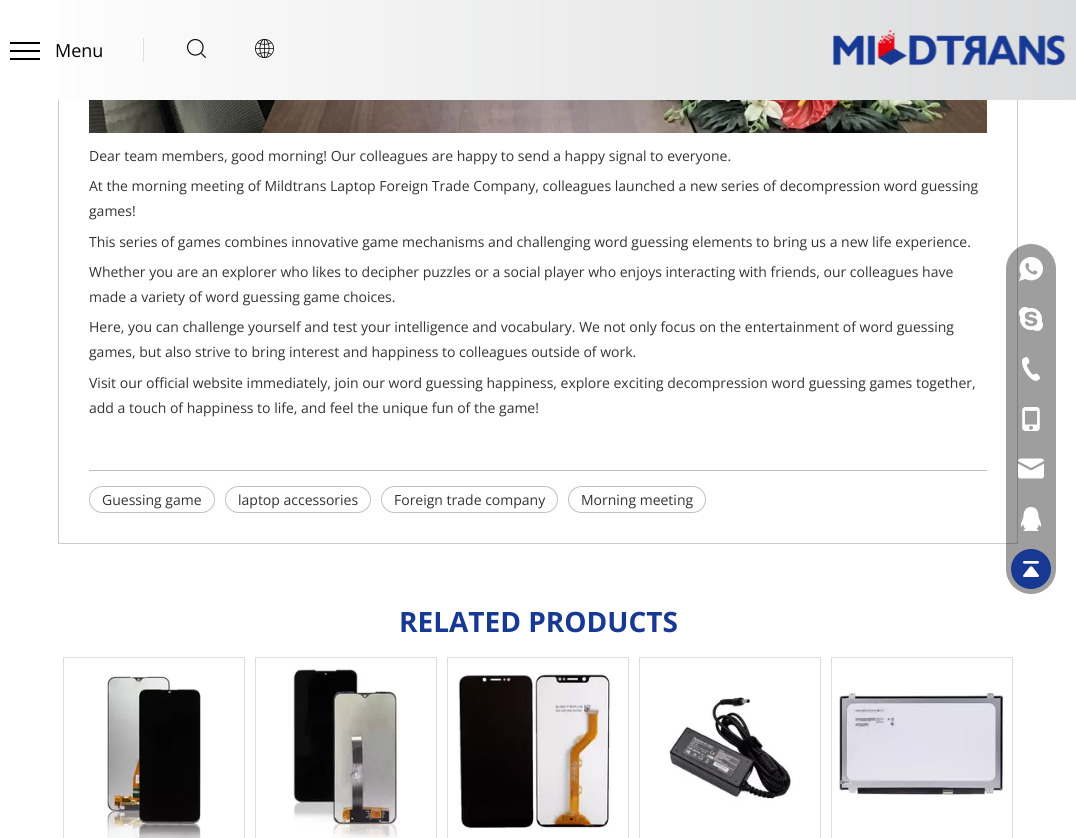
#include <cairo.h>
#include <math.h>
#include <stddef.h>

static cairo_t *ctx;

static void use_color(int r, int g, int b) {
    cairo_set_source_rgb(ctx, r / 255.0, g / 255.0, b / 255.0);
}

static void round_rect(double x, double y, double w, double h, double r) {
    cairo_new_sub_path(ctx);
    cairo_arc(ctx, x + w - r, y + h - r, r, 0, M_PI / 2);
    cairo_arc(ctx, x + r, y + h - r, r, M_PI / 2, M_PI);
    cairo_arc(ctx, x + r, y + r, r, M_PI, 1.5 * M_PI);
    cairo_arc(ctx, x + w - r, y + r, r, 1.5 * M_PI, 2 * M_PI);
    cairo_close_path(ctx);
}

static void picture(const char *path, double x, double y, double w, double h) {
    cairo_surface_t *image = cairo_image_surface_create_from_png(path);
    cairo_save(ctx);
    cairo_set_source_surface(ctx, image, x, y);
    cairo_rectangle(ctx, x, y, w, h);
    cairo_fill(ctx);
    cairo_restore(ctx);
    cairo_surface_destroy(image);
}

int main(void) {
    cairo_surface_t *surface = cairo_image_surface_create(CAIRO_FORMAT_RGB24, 1076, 838);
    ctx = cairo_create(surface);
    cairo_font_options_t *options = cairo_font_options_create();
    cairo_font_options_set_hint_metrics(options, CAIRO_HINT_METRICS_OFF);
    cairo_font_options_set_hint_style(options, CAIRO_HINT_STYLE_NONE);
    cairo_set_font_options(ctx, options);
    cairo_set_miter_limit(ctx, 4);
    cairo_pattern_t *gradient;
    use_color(255, 255, 255);
    cairo_paint(ctx);
    cairo_rectangle(ctx, 58.5, -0.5, 959, 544);
    use_color(204, 204, 204);
    cairo_set_line_width(ctx, 1);
    cairo_stroke(ctx);
    gradient = cairo_pattern_create_linear(0, 50, 1076, 50);
    cairo_pattern_add_color_stop_rgba(gradient, 0, 1, 1, 1, 1);
    cairo_pattern_add_color_stop_rgba(gradient, 1, 0.859, 0.863, 0.867, 1);
    cairo_set_source(ctx, gradient);
    cairo_pattern_destroy(gradient);
    cairo_rectangle(ctx, 58, 0, 1018, 100);
    cairo_fill(ctx);
    use_color(225, 225, 225);
    cairo_rectangle(ctx, 143, 38, 1, 24);
    cairo_fill(ctx);
    use_color(0, 0, 0);
    cairo_rectangle(ctx, 10, 42, 30, 2);
    cairo_fill(ctx);
    cairo_rectangle(ctx, 10, 50, 30, 2);
    cairo_fill(ctx);
    cairo_rectangle(ctx, 10, 58, 30, 2);
    cairo_fill(ctx);
    cairo_select_font_face(ctx, "Open Sans", CAIRO_FONT_SLANT_NORMAL, CAIRO_FONT_WEIGHT_NORMAL);
    cairo_set_font_size(ctx, 18);
    cairo_move_to(ctx, 55, 57);
    cairo_show_text(ctx, "Menu");
    picture("img1.png", 187, 39, 19, 19);
    picture("img2.png", 255, 39, 19, 19);
    picture("img3.png", 833, 29, 233, 37);
    picture("img4.png", 89, 100, 898, 33);
    cairo_set_font_size(ctx, 14);
    use_color(51, 51, 51);
    cairo_move_to(ctx, 89, 161);
    cairo_show_text(ctx, "Dear team members, good morning! Our colleagues are happy to send a happy signal to everyone.");
    cairo_move_to(ctx, 89, 191);
    cairo_show_text(ctx, "At the morning meeting of Mildtrans Laptop Foreign Trade Company, colleagues launched a new series of decompression word guessing");
    cairo_move_to(ctx, 89, 216);
    cairo_show_text(ctx, "games!");
    cairo_move_to(ctx, 89, 247);
    cairo_show_text(ctx, "This series of games combines innovative game mechanisms and challenging word guessing elements to bring us a new life experience.");
    cairo_move_to(ctx, 89, 277);
    cairo_show_text(ctx, "Whether you are an explorer who likes to decipher puzzles or a social player who enjoys interacting with friends, our colleagues have");
    cairo_move_to(ctx, 89, 302);
    cairo_show_text(ctx, "made a variety of word guessing game choices.");
    cairo_move_to(ctx, 89, 332);
    cairo_show_text(ctx, "Here, you can challenge yourself and test your intelligence and vocabulary. We not only focus on the entertainment of word guessing");
    cairo_move_to(ctx, 89, 357);
    cairo_show_text(ctx, "games, but also strive to bring interest and happiness to colleagues outside of work.");
    cairo_move_to(ctx, 89, 388);
    cairo_show_text(ctx, "Visit our official website immediately, join our word guessing happiness, explore exciting decompression word guessing games together,");
    cairo_move_to(ctx, 89, 413);
    cairo_show_text(ctx, "add a touch of happiness to life, and feel the unique fun of the game!");
    use_color(192, 192, 192);
    cairo_rectangle(ctx, 89, 470, 898, 1);
    cairo_fill(ctx);
    round_rect(89.5, 486.5, 125, 26, 13);
    cairo_stroke(ctx);
    use_color(51, 51, 51);
    cairo_move_to(ctx, 102, 505);
    cairo_show_text(ctx, "Guessing game");
    round_rect(225.5, 486.5, 145, 26, 13);
    use_color(192, 192, 192);
    cairo_stroke(ctx);
    use_color(51, 51, 51);
    cairo_move_to(ctx, 238, 505);
    cairo_show_text(ctx, "laptop accessories");
    round_rect(381.5, 486.5, 176, 26, 13);
    use_color(192, 192, 192);
    cairo_stroke(ctx);
    use_color(51, 51, 51);
    cairo_move_to(ctx, 394, 505);
    cairo_show_text(ctx, "Foreign trade company");
    round_rect(568.5, 486.5, 137, 26, 13);
    use_color(192, 192, 192);
    cairo_stroke(ctx);
    use_color(51, 51, 51);
    cairo_move_to(ctx, 581, 505);
    cairo_show_text(ctx, "Morning meeting");
    cairo_select_font_face(ctx, "Open Sans", CAIRO_FONT_SLANT_NORMAL, CAIRO_FONT_WEIGHT_BOLD);
    cairo_set_font_size(ctx, 28);
    use_color(23, 57, 148);
    cairo_move_to(ctx, 399, 632);
    cairo_show_text(ctx, "RELATED PRODUCTS");
    cairo_rectangle(ctx, 63.5, 657.5, 181, 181);
    use_color(221, 221, 221);
    cairo_stroke(ctx);
    picture("img5.png", 107, 675, 94, 163);
    cairo_rectangle(ctx, 255.5, 657.5, 181, 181);
    cairo_stroke(ctx);
    picture("img6.png", 293, 668, 107, 170);
    cairo_rectangle(ctx, 447.5, 657.5, 181, 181);
    cairo_stroke(ctx);
    picture("img7.png", 458, 674, 154, 155);
    cairo_rectangle(ctx, 639.5, 657.5, 181, 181);
    cairo_stroke(ctx);
    picture("img8.png", 667, 697, 126, 104);
    cairo_rectangle(ctx, 831.5, 657.5, 181, 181);
    cairo_stroke(ctx);
    picture("img9.png", 839, 691, 166, 104);
    cairo_set_source_rgba(ctx, 0, 0, 0, 0.38);
    round_rect(1006, 244, 50, 350, 25);
    cairo_fill(ctx);
    picture("img10.png", 1019, 257, 24, 24);
    picture("img11.png", 1019, 307, 24, 24);
    picture("img12.png", 1022, 357, 18, 24);
    picture("img13.png", 1022, 407, 18, 24);
    picture("img14.png", 1018, 458, 26, 21);
    picture("img15.png", 1020, 507, 22, 24);
    use_color(23, 57, 148);
    cairo_arc(ctx, 1031, 569, 20, 0, 2 * M_PI);
    cairo_fill(ctx);
    picture("img16.png", 1023, 561, 16, 16);
    cairo_surface_write_to_png(surface, "result.png");
    cairo_font_options_destroy(options);
    cairo_destroy(ctx);
    cairo_surface_destroy(surface);
    return 0;
}
